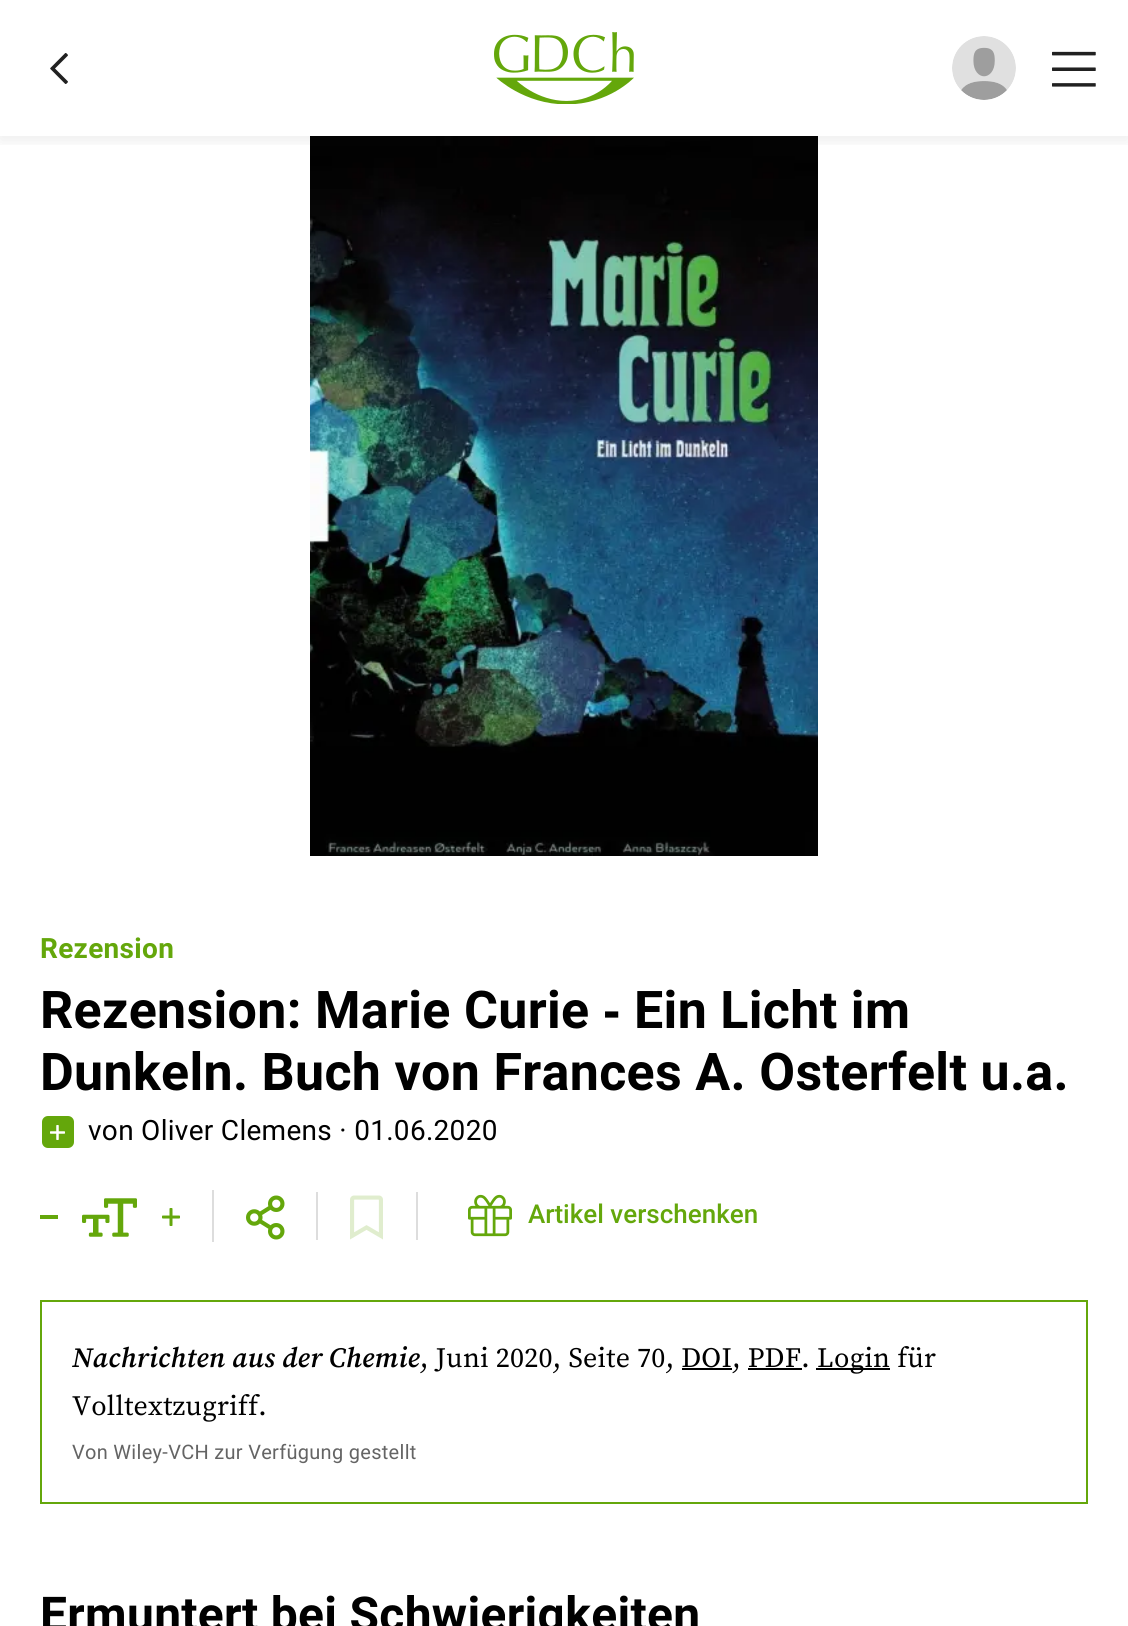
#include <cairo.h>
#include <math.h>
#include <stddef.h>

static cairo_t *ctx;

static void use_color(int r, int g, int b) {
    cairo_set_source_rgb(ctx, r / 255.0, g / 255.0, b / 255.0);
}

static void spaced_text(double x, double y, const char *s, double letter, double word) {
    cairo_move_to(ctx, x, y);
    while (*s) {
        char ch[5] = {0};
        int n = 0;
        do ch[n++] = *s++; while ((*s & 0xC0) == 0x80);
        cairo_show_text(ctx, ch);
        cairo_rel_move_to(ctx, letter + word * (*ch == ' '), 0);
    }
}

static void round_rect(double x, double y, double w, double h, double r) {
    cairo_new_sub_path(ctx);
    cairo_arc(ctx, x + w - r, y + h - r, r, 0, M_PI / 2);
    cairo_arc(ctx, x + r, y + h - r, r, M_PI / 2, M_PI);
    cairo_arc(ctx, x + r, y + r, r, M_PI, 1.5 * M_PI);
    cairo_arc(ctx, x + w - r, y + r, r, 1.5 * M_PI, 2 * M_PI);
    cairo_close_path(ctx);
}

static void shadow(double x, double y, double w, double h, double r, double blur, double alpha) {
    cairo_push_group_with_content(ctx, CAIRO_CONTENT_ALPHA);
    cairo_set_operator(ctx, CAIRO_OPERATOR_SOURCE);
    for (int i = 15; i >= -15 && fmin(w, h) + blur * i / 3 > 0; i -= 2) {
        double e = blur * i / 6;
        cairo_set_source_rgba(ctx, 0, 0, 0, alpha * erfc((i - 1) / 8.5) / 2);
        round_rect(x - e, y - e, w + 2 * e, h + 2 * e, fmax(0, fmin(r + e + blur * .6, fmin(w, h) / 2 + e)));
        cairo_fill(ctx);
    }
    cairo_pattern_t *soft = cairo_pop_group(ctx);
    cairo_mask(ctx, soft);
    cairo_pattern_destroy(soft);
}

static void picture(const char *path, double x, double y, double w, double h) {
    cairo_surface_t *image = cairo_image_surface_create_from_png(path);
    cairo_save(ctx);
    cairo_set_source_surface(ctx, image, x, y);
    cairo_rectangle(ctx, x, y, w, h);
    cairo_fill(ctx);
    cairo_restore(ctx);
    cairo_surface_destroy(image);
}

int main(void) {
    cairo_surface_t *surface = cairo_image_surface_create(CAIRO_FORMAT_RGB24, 1128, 1626);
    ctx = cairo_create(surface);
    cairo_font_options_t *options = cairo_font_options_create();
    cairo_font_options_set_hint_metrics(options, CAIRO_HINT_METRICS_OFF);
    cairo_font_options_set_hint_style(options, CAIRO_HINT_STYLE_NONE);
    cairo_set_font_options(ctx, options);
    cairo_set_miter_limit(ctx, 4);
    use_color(255, 255, 255);
    cairo_paint(ctx);
    picture("img5.png", 310, 136, 508, 720);
    cairo_save(ctx);
    cairo_rectangle(ctx, 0, 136, 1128, 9);
    cairo_clip(ctx);
    use_color(0, 0, 0);
    shadow(0, 4, 1128, 136, 0, 8, 0.08);
    cairo_restore(ctx);
    picture("img1.png", 50, 53, 18, 31);
    picture("img2.png", 494, 32, 140, 72);
    picture("img3.png", 952, 36, 64, 64);
    picture("img4.png", 1052, 51, 44, 36);
    cairo_select_font_face(ctx, "Roboto", CAIRO_FONT_SLANT_NORMAL, CAIRO_FONT_WEIGHT_BOLD);
    cairo_set_font_size(ctx, 28);
    use_color(100, 167, 11);
    spaced_text(40, 958, "Rezension", 0.3, 0);
    cairo_set_font_size(ctx, 52);
    use_color(0, 0, 0);
    spaced_text(40, 1028, "Rezension: Marie Curie", 0.3, 0);
    cairo_select_font_face(ctx, "Liberation Sans", CAIRO_FONT_SLANT_NORMAL, CAIRO_FONT_WEIGHT_BOLD);
    spaced_text(603, 1028, "‐", 0.3, 0);
    cairo_select_font_face(ctx, "Roboto", CAIRO_FONT_SLANT_NORMAL, CAIRO_FONT_WEIGHT_BOLD);
    spaced_text(634, 1028, "Ein Licht im", 0.3, 0);
    spaced_text(40, 1090, "Dunkeln. Buch von Frances A. Osterfelt u.a.", 0.3, 0);
    use_color(100, 167, 11);
    round_rect(42, 1116, 32, 32, 6);
    cairo_fill(ctx);
    picture("img6.png", 50, 1125, 15, 15);
    cairo_select_font_face(ctx, "Roboto", CAIRO_FONT_SLANT_NORMAL, CAIRO_FONT_WEIGHT_NORMAL);
    cairo_set_font_size(ctx, 28);
    use_color(0, 0, 0);
    spaced_text(88, 1140, "von Oliver Clemens · 01.06.2020", 0.3, 0);
    use_color(221, 221, 221);
    cairo_rectangle(ctx, 212, 1190, 2, 52);
    cairo_fill(ctx);
    use_color(100, 167, 11);
    cairo_rectangle(ctx, 40, 1215, 18, 4);
    cairo_fill(ctx);
    picture("img7.png", 82, 1198, 55, 39);
    picture("img8.png", 162, 1208, 18, 18);
    use_color(221, 221, 221);
    cairo_rectangle(ctx, 316, 1192, 2, 48);
    cairo_fill(ctx);
    picture("img9.png", 246, 1195, 39, 45);
    cairo_rectangle(ctx, 416, 1192, 2, 48);
    cairo_fill(ctx);
    picture("img10.png", 350, 1195, 33, 45);
    picture("img11.png", 468, 1194, 44, 43);
    cairo_select_font_face(ctx, "Roboto Medium", CAIRO_FONT_SLANT_NORMAL, CAIRO_FONT_WEIGHT_NORMAL);
    cairo_set_font_size(ctx, 26);
    use_color(100, 167, 11);
    cairo_move_to(ctx, 528, 1223);
    cairo_show_text(ctx, "Artikel verschenken");
    cairo_rectangle(ctx, 41, 1301, 1046, 202);
    cairo_stroke(ctx);
    cairo_select_font_face(ctx, "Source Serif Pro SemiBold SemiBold", CAIRO_FONT_SLANT_ITALIC, CAIRO_FONT_WEIGHT_NORMAL);
    cairo_set_font_size(ctx, 28);
    use_color(0, 0, 0);
    spaced_text(72, 1367, "Nachrichten aus der Chemie", 0.3, 0);
    cairo_select_font_face(ctx, "Source Serif Pro", CAIRO_FONT_SLANT_NORMAL, CAIRO_FONT_WEIGHT_NORMAL);
    spaced_text(420, 1367, ", Juni 2020, Seite 70, DOI, PDF.", 0.3, 0);
    cairo_rectangle(ctx, 682, 1368, 50, 2);
    cairo_fill(ctx);
    cairo_rectangle(ctx, 748, 1368, 54, 2);
    cairo_fill(ctx);
    cairo_rectangle(ctx, 816, 1368, 74, 2);
    cairo_fill(ctx);
    spaced_text(817, 1367, "Login für", 0.3, 0);
    spaced_text(72, 1415, "Volltextzugriff.", 0.3, 0);
    cairo_select_font_face(ctx, "Roboto", CAIRO_FONT_SLANT_NORMAL, CAIRO_FONT_WEIGHT_NORMAL);
    cairo_set_font_size(ctx, 20);
    use_color(100, 100, 100);
    spaced_text(72, 1459, "Von Wiley-VCH zur Verfügung gestellt", 0.3, 0);
    cairo_select_font_face(ctx, "Roboto", CAIRO_FONT_SLANT_NORMAL, CAIRO_FONT_WEIGHT_BOLD);
    cairo_set_font_size(ctx, 48);
    use_color(0, 0, 0);
    spaced_text(40, 1631, "Ermuntert bei Schwierigkeiten", 0.3, 0);
    cairo_surface_write_to_png(surface, "result.png");
    cairo_font_options_destroy(options);
    cairo_destroy(ctx);
    cairo_surface_destroy(surface);
    return 0;
}
